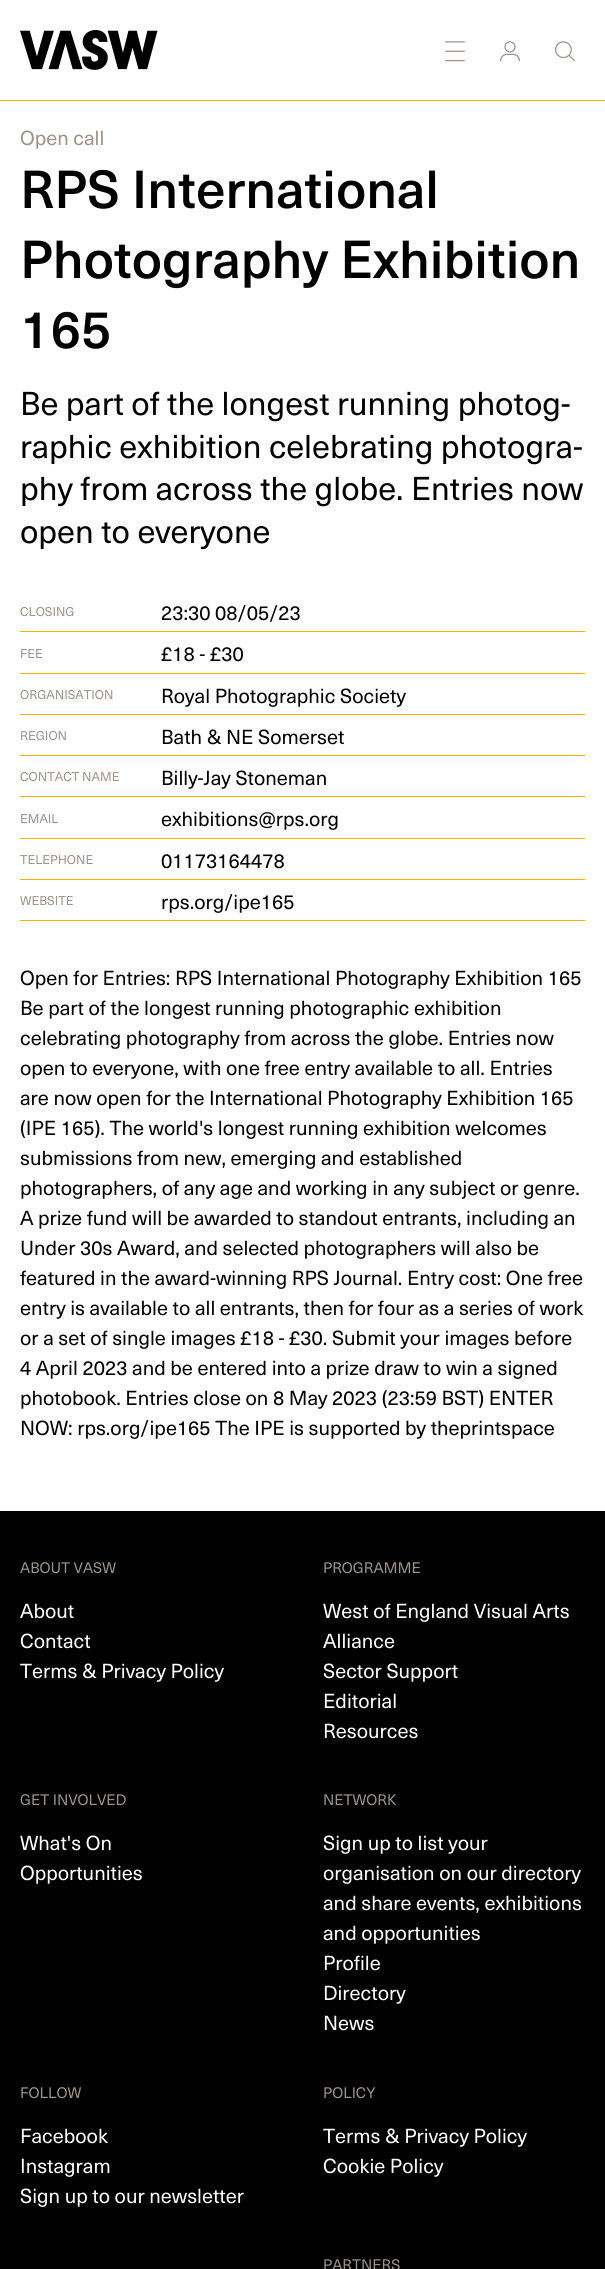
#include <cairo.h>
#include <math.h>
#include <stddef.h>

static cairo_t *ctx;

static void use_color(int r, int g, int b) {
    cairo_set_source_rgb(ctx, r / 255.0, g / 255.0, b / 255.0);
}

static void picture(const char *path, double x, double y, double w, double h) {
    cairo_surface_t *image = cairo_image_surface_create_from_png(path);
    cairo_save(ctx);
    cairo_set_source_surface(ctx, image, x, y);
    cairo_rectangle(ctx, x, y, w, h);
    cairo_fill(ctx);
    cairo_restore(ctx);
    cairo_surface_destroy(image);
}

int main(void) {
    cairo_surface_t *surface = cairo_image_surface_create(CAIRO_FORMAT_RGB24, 605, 2269);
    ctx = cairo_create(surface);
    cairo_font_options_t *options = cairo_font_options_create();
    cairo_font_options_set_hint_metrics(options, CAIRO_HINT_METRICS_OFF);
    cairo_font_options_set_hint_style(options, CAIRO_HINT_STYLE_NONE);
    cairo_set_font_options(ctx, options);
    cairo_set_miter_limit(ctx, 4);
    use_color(255, 255, 255);
    cairo_paint(ctx);
    picture("img1.png", 20, 30, 138, 40);
    picture("img2.png", 445, 41, 20, 21);
    picture("img3.png", 500, 41, 20, 21);
    picture("img4.png", 555, 41, 20, 21);
    use_color(255, 174, 0);
    cairo_rectangle(ctx, 0, 100, 605, 1);
    cairo_fill(ctx);
    cairo_select_font_face(ctx, "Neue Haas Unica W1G", CAIRO_FONT_SLANT_NORMAL, CAIRO_FONT_WEIGHT_NORMAL);
    cairo_set_font_size(ctx, 20);
    use_color(156, 147, 139);
    cairo_move_to(ctx, 20, 145);
    cairo_show_text(ctx, "Open call");
    cairo_select_font_face(ctx, "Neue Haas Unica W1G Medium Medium", CAIRO_FONT_SLANT_NORMAL, CAIRO_FONT_WEIGHT_NORMAL);
    cairo_set_font_size(ctx, 52.5);
    use_color(0, 0, 0);
    cairo_move_to(ctx, 20, 208);
    cairo_show_text(ctx, "RPS International");
    cairo_move_to(ctx, 20, 278);
    cairo_show_text(ctx, "Photography Exhibition");
    cairo_move_to(ctx, 20, 348);
    cairo_show_text(ctx, "165");
    cairo_select_font_face(ctx, "Neue Haas Unica W1G", CAIRO_FONT_SLANT_NORMAL, CAIRO_FONT_WEIGHT_NORMAL);
    cairo_set_font_size(ctx, 32.5);
    cairo_move_to(ctx, 20, 415);
    cairo_show_text(ctx, "Be part of the longest running photog-");
    cairo_move_to(ctx, 20, 458);
    cairo_show_text(ctx, "raphic exhibition celebrating photogra-");
    cairo_move_to(ctx, 20, 500);
    cairo_show_text(ctx, "phy from across the globe. Entries now");
    cairo_move_to(ctx, 20, 543);
    cairo_show_text(ctx, "open to everyone");
    use_color(255, 174, 0);
    cairo_rectangle(ctx, 20, 631, 565, 1);
    cairo_fill(ctx);
    cairo_set_font_size(ctx, 12.5);
    use_color(156, 147, 139);
    cairo_move_to(ctx, 20, 616);
    cairo_show_text(ctx, "CLOSING");
    cairo_set_font_size(ctx, 20);
    use_color(0, 0, 0);
    cairo_move_to(ctx, 161, 620);
    cairo_show_text(ctx, "23:30 08/05/23");
    use_color(255, 174, 0);
    cairo_rectangle(ctx, 20, 673, 565, 1);
    cairo_fill(ctx);
    cairo_set_font_size(ctx, 12.5);
    use_color(156, 147, 139);
    cairo_move_to(ctx, 20, 658);
    cairo_show_text(ctx, "FEE");
    cairo_set_font_size(ctx, 20);
    use_color(0, 0, 0);
    cairo_move_to(ctx, 161, 661);
    cairo_show_text(ctx, "£18 - £30");
    use_color(255, 174, 0);
    cairo_rectangle(ctx, 20, 714, 565, 1);
    cairo_fill(ctx);
    cairo_set_font_size(ctx, 12.5);
    use_color(156, 147, 139);
    cairo_move_to(ctx, 20, 699);
    cairo_show_text(ctx, "ORGANISATION");
    cairo_set_font_size(ctx, 20);
    use_color(0, 0, 0);
    cairo_move_to(ctx, 161, 703);
    cairo_show_text(ctx, "Royal Photographic Society");
    use_color(255, 174, 0);
    cairo_rectangle(ctx, 20, 755, 565, 1);
    cairo_fill(ctx);
    cairo_set_font_size(ctx, 12.5);
    use_color(156, 147, 139);
    cairo_move_to(ctx, 20, 740);
    cairo_show_text(ctx, "REGION");
    cairo_set_font_size(ctx, 20);
    use_color(0, 0, 0);
    cairo_move_to(ctx, 161, 744);
    cairo_show_text(ctx, "Bath & NE Somerset");
    use_color(255, 174, 0);
    cairo_rectangle(ctx, 20, 796, 565, 1);
    cairo_fill(ctx);
    cairo_set_font_size(ctx, 12.5);
    use_color(156, 147, 139);
    cairo_move_to(ctx, 20, 781);
    cairo_show_text(ctx, "CONTACT NAME");
    cairo_set_font_size(ctx, 20);
    use_color(0, 0, 0);
    cairo_move_to(ctx, 161, 785);
    cairo_show_text(ctx, "Billy-Jay Stoneman");
    use_color(255, 174, 0);
    cairo_rectangle(ctx, 20, 838, 565, 1);
    cairo_fill(ctx);
    cairo_set_font_size(ctx, 12.5);
    use_color(156, 147, 139);
    cairo_move_to(ctx, 20, 823);
    cairo_show_text(ctx, "EMAIL");
    cairo_set_font_size(ctx, 20);
    use_color(0, 0, 0);
    cairo_move_to(ctx, 161, 826);
    cairo_show_text(ctx, "exhibitions@rps.org");
    use_color(255, 174, 0);
    cairo_rectangle(ctx, 20, 879, 565, 1);
    cairo_fill(ctx);
    cairo_set_font_size(ctx, 12.5);
    use_color(156, 147, 139);
    cairo_move_to(ctx, 20, 864);
    cairo_show_text(ctx, "TELEPHONE");
    cairo_set_font_size(ctx, 20);
    use_color(0, 0, 0);
    cairo_move_to(ctx, 161, 868);
    cairo_show_text(ctx, "01173164478");
    use_color(255, 174, 0);
    cairo_rectangle(ctx, 20, 920, 565, 1);
    cairo_fill(ctx);
    cairo_set_font_size(ctx, 12.5);
    use_color(156, 147, 139);
    cairo_move_to(ctx, 20, 905);
    cairo_show_text(ctx, "WEBSITE");
    cairo_set_font_size(ctx, 20);
    use_color(0, 0, 0);
    cairo_move_to(ctx, 161, 909);
    cairo_show_text(ctx, "rps.org/ipe165");
    cairo_move_to(ctx, 20, 985);
    cairo_show_text(ctx, "Open for Entries: RPS International Photography Exhibition 165");
    cairo_move_to(ctx, 20, 1015);
    cairo_show_text(ctx, "Be part of the longest running photographic exhibition");
    cairo_move_to(ctx, 20, 1045);
    cairo_show_text(ctx, "celebrating photography from across the globe. Entries now");
    cairo_move_to(ctx, 20, 1075);
    cairo_show_text(ctx, "open to everyone, with one free entry available to all. Entries");
    cairo_move_to(ctx, 20, 1105);
    cairo_show_text(ctx, "are now open for the International Photography Exhibition 165");
    cairo_move_to(ctx, 20, 1135);
    cairo_show_text(ctx, "(IPE 165). The world's longest running exhibition welcomes");
    cairo_move_to(ctx, 20, 1165);
    cairo_show_text(ctx, "submissions from new, emerging and established");
    cairo_move_to(ctx, 20, 1195);
    cairo_show_text(ctx, "photographers, of any age and working in any subject or genre.");
    cairo_move_to(ctx, 20, 1225);
    cairo_show_text(ctx, "A prize fund will be awarded to standout entrants, including an");
    cairo_move_to(ctx, 20, 1255);
    cairo_show_text(ctx, "Under 30s Award, and selected photographers will also be");
    cairo_move_to(ctx, 20, 1285);
    cairo_show_text(ctx, "featured in the award-winning RPS Journal. Entry cost: One free");
    cairo_move_to(ctx, 20, 1315);
    cairo_show_text(ctx, "entry is available to all entrants, then for four as a series of work");
    cairo_move_to(ctx, 20, 1345);
    cairo_show_text(ctx, "or a set of single images £18 - £30. Submit your images before");
    cairo_move_to(ctx, 20, 1375);
    cairo_show_text(ctx, "4 April 2023 and be entered into a prize draw to win a signed");
    cairo_move_to(ctx, 20, 1405);
    cairo_show_text(ctx, "photobook. Entries close on 8 May 2023 (23:59 BST) ENTER");
    cairo_move_to(ctx, 20, 1435);
    cairo_show_text(ctx, "NOW: rps.org/ipe165 The IPE is supported by theprintspace");
    cairo_rectangle(ctx, 0, 1511, 605, 758);
    cairo_fill(ctx);
    cairo_set_font_size(ctx, 15);
    use_color(156, 147, 139);
    cairo_move_to(ctx, 20, 1573);
    cairo_show_text(ctx, "ABOUT VASW");
    cairo_set_font_size(ctx, 20);
    use_color(255, 255, 255);
    cairo_move_to(ctx, 20, 1618);
    cairo_show_text(ctx, "About");
    cairo_move_to(ctx, 20, 1648);
    cairo_show_text(ctx, "Contact");
    cairo_move_to(ctx, 20, 1678);
    cairo_show_text(ctx, "Terms & Privacy Policy");
    cairo_set_font_size(ctx, 15);
    use_color(156, 147, 139);
    cairo_move_to(ctx, 323, 1573);
    cairo_show_text(ctx, "PROGRAMME");
    cairo_set_font_size(ctx, 20);
    use_color(255, 255, 255);
    cairo_move_to(ctx, 323, 1618);
    cairo_show_text(ctx, "West of England Visual Arts");
    cairo_move_to(ctx, 323, 1648);
    cairo_show_text(ctx, "Alliance");
    cairo_move_to(ctx, 323, 1678);
    cairo_show_text(ctx, "Sector Support");
    cairo_move_to(ctx, 323, 1708);
    cairo_show_text(ctx, "Editorial");
    cairo_move_to(ctx, 323, 1738);
    cairo_show_text(ctx, "Resources");
    cairo_set_font_size(ctx, 15);
    use_color(156, 147, 139);
    cairo_move_to(ctx, 20, 1805);
    cairo_show_text(ctx, "GET INVOLVED");
    cairo_set_font_size(ctx, 20);
    use_color(255, 255, 255);
    cairo_move_to(ctx, 20, 1850);
    cairo_show_text(ctx, "What's On");
    cairo_move_to(ctx, 20, 1880);
    cairo_show_text(ctx, "Opportunities");
    cairo_set_font_size(ctx, 15);
    use_color(156, 147, 139);
    cairo_move_to(ctx, 323, 1805);
    cairo_show_text(ctx, "NETWORK");
    cairo_set_font_size(ctx, 20);
    use_color(255, 255, 255);
    cairo_move_to(ctx, 323, 1850);
    cairo_show_text(ctx, "Sign up to list your");
    cairo_move_to(ctx, 323, 1880);
    cairo_show_text(ctx, "organisation on our directory");
    cairo_move_to(ctx, 323, 1910);
    cairo_show_text(ctx, "and share events, exhibitions");
    cairo_move_to(ctx, 323, 1940);
    cairo_show_text(ctx, "and opportunities");
    cairo_move_to(ctx, 323, 1970);
    cairo_show_text(ctx, "Profile");
    cairo_move_to(ctx, 323, 2000);
    cairo_show_text(ctx, "Directory");
    cairo_move_to(ctx, 323, 2030);
    cairo_show_text(ctx, "News");
    cairo_set_font_size(ctx, 15);
    use_color(156, 147, 139);
    cairo_move_to(ctx, 20, 2098);
    cairo_show_text(ctx, "FOLLOW");
    cairo_set_font_size(ctx, 20);
    use_color(255, 255, 255);
    cairo_move_to(ctx, 20, 2143);
    cairo_show_text(ctx, "Facebook");
    cairo_move_to(ctx, 20, 2173);
    cairo_show_text(ctx, "Instagram");
    cairo_move_to(ctx, 20, 2203);
    cairo_show_text(ctx, "Sign up to our newsletter");
    cairo_set_font_size(ctx, 15);
    use_color(156, 147, 139);
    cairo_move_to(ctx, 323, 2098);
    cairo_show_text(ctx, "POLICY");
    cairo_set_font_size(ctx, 20);
    use_color(255, 255, 255);
    cairo_move_to(ctx, 323, 2143);
    cairo_show_text(ctx, "Terms & Privacy Policy");
    cairo_move_to(ctx, 323, 2173);
    cairo_show_text(ctx, "Cookie Policy");
    cairo_set_font_size(ctx, 15);
    use_color(156, 147, 139);
    cairo_move_to(ctx, 323, 2270);
    cairo_show_text(ctx, "PARTNERS");
    cairo_surface_write_to_png(surface, "result.png");
    cairo_font_options_destroy(options);
    cairo_destroy(ctx);
    cairo_surface_destroy(surface);
    return 0;
}
